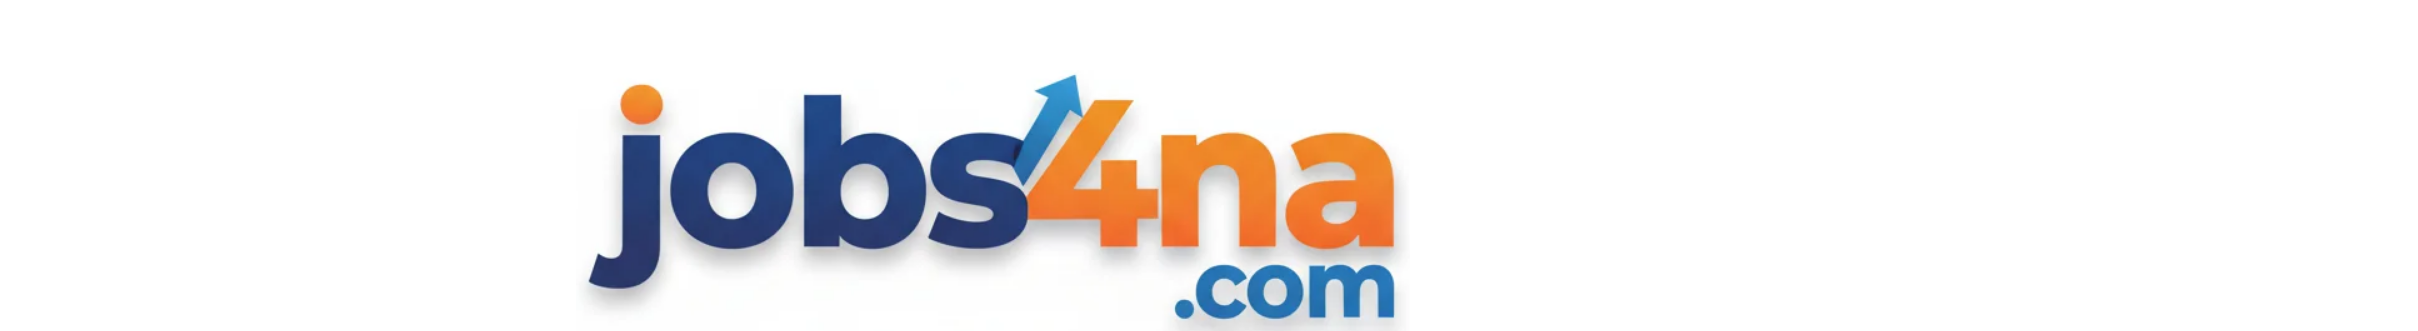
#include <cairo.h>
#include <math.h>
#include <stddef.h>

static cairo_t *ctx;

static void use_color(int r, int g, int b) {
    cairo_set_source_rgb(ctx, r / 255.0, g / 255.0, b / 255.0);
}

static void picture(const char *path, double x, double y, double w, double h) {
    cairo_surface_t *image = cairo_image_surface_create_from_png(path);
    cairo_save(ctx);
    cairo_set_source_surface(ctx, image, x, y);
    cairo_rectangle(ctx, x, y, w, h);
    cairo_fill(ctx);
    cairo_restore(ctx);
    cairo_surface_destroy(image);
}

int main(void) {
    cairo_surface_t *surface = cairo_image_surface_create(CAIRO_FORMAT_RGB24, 2418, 331);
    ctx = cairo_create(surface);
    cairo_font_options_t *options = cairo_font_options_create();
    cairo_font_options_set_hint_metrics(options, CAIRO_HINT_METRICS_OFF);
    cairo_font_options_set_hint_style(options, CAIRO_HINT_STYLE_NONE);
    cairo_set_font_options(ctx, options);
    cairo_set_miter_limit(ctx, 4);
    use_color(255, 255, 255);
    cairo_paint(ctx);
    picture("img1.png", 576, 70, 834, 261);
    cairo_surface_write_to_png(surface, "result.png");
    cairo_font_options_destroy(options);
    cairo_destroy(ctx);
    cairo_surface_destroy(surface);
    return 0;
}
